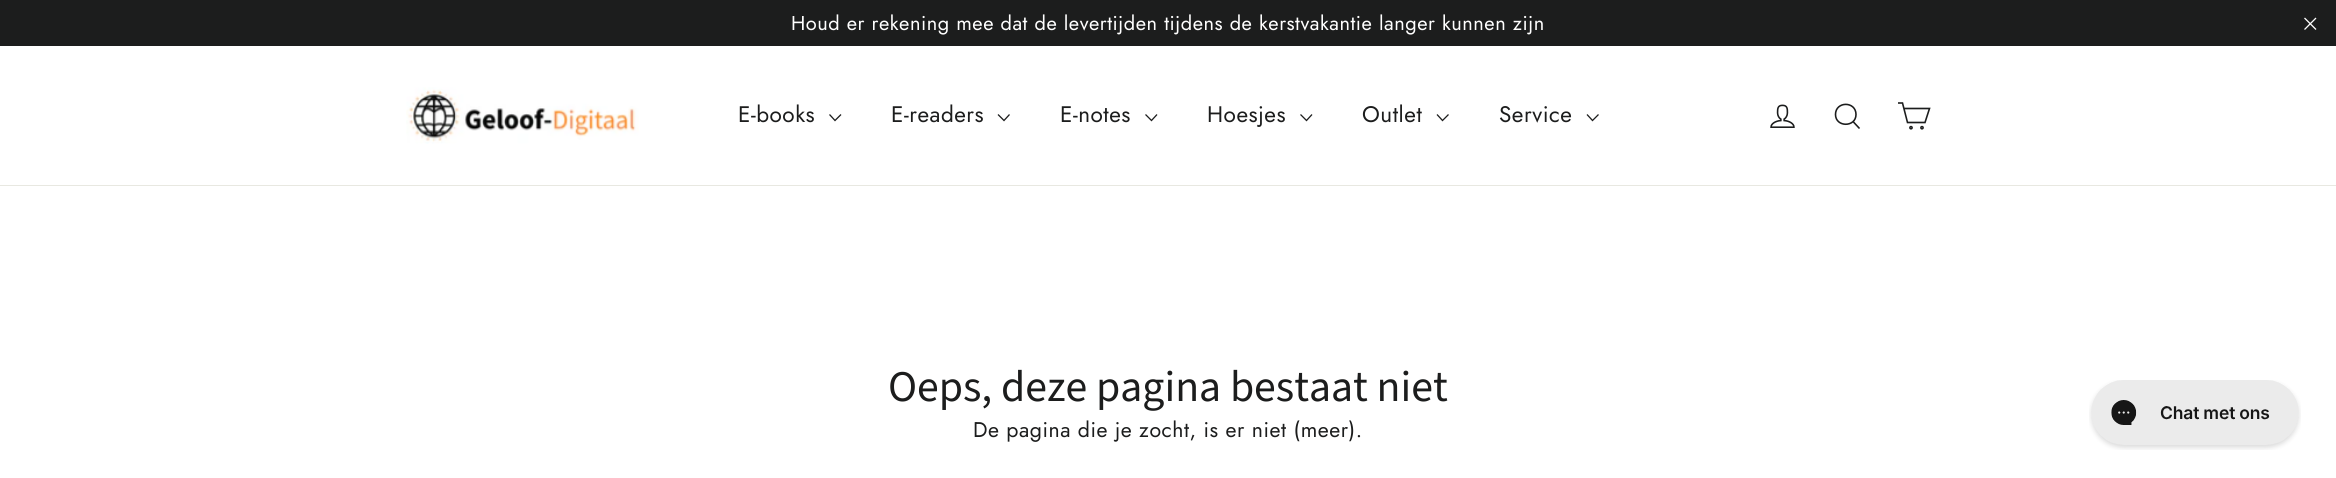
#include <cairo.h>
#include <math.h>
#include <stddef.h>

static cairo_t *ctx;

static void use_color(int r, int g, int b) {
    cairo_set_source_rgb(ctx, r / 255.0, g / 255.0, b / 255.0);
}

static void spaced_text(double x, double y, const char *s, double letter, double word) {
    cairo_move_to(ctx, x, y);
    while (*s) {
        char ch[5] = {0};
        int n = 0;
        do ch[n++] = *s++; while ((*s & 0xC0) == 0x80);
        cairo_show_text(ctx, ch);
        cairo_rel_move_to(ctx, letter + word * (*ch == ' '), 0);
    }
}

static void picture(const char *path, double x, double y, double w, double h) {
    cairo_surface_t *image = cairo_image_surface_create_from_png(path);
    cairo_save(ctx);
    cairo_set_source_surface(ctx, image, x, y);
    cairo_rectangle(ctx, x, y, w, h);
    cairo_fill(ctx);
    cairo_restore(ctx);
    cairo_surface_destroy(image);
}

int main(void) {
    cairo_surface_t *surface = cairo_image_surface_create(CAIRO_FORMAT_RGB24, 2336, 478);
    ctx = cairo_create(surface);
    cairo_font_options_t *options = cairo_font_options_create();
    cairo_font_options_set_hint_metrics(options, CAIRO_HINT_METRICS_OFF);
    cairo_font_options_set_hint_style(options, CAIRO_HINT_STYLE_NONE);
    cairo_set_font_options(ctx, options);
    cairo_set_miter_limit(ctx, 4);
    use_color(255, 255, 255);
    cairo_paint(ctx);
    use_color(28, 29, 29);
    cairo_rectangle(ctx, 0, 0, 2336, 46);
    cairo_fill(ctx);
    cairo_select_font_face(ctx, "Jost", CAIRO_FONT_SLANT_NORMAL, CAIRO_FONT_WEIGHT_NORMAL);
    cairo_set_font_size(ctx, 20);
    use_color(255, 255, 255);
    spaced_text(791, 30, "Houd er rekening mee dat de levertijden tijdens de kerstvakantie langer kunnen zijn", 0.53, 0);
    cairo_new_path(ctx);
    cairo_move_to(ctx, 2304.5, 18);
    cairo_line_to(ctx, 2316, 29.5);
    cairo_move_to(ctx, 2316, 18);
    cairo_line_to(ctx, 2304.5, 29.5);
    cairo_set_line_width(ctx, 1.3);
    cairo_stroke(ctx);
    use_color(232, 232, 225);
    cairo_rectangle(ctx, 0, 185, 2336, 1);
    cairo_fill(ctx);
    picture("img1.png", 406, 87, 233, 57);
    cairo_set_font_size(ctx, 22.5);
    use_color(28, 29, 29);
    spaced_text(738, 122, "E-books", 0.53, 0);
    cairo_new_path(ctx);
    cairo_move_to(ctx, 829.5, 114.5);
    cairo_line_to(ctx, 835, 120.5);
    cairo_line_to(ctx, 841, 114.5);
    cairo_stroke(ctx);
    spaced_text(891, 122, "E-readers", 0.53, 0);
    cairo_new_path(ctx);
    cairo_move_to(ctx, 998, 114.5);
    cairo_line_to(ctx, 1004, 120.5);
    cairo_line_to(ctx, 1009.5, 114.5);
    cairo_stroke(ctx);
    spaced_text(1060, 122, "E-notes", 0.53, 0);
    cairo_new_path(ctx);
    cairo_move_to(ctx, 1145.5, 114.5);
    cairo_line_to(ctx, 1151.5, 120.5);
    cairo_line_to(ctx, 1157, 114.5);
    cairo_stroke(ctx);
    spaced_text(1207, 122, "Hoesjes", 0.53, 0);
    cairo_new_path(ctx);
    cairo_move_to(ctx, 1300.5, 114.5);
    cairo_line_to(ctx, 1306.5, 120.5);
    cairo_line_to(ctx, 1312, 114.5);
    cairo_stroke(ctx);
    spaced_text(1362, 122, "Outlet", 0.53, 0);
    cairo_new_path(ctx);
    cairo_move_to(ctx, 1437, 114.5);
    cairo_line_to(ctx, 1442.5, 120.5);
    cairo_line_to(ctx, 1448.5, 114.5);
    cairo_stroke(ctx);
    spaced_text(1499, 122, "Service", 0.53, 0);
    cairo_new_path(ctx);
    cairo_move_to(ctx, 1587, 114.5);
    cairo_line_to(ctx, 1592.5, 120.5);
    cairo_line_to(ctx, 1598.5, 114.5);
    cairo_stroke(ctx);
    picture("img2.png", 1770, 104, 25, 24);
    cairo_new_path(ctx);
    cairo_move_to(ctx, 1856, 114.5);
    cairo_curve_to(ctx, 1856, 127.5, 1835.5, 127.5, 1835.5, 114.5);
    cairo_curve_to(ctx, 1835.5, 101, 1856, 101, 1856, 114.5);
    cairo_close_path(ctx);
    cairo_move_to(ctx, 1859.5, 128.5);
    cairo_line_to(ctx, 1853, 121.5);
    cairo_set_line_width(ctx, 1.6);
    cairo_stroke(ctx);
    cairo_new_path(ctx);
    cairo_move_to(ctx, 1904, 108.5);
    cairo_line_to(ctx, 1929.5, 108.5);
    cairo_line_to(ctx, 1925, 122.5);
    cairo_line_to(ctx, 1907.5, 122.5);
    cairo_line_to(ctx, 1902.5, 103);
    cairo_line_to(ctx, 1898, 103);
    cairo_stroke(ctx);
    cairo_arc(ctx, 1911, 127.7, 1.1, 0, 2 * M_PI);
    cairo_stroke(ctx);
    cairo_arc(ctx, 1922, 127.7, 1.1, 0, 2 * M_PI);
    cairo_stroke(ctx);
    cairo_select_font_face(ctx, "Source Sans Pro", CAIRO_FONT_SLANT_NORMAL, CAIRO_FONT_WEIGHT_NORMAL);
    cairo_set_font_size(ctx, 43.75);
    cairo_move_to(ctx, 888, 401);
    cairo_show_text(ctx, "Oeps, deze pagina bestaat niet");
    cairo_select_font_face(ctx, "Jost", CAIRO_FONT_SLANT_NORMAL, CAIRO_FONT_WEIGHT_NORMAL);
    cairo_set_font_size(ctx, 21.25);
    spaced_text(973, 437, "De pagina die je zocht, is er niet (meer).", 0.53, 0);
    picture("img3.png", 2089, 380, 212, 70);
    cairo_surface_write_to_png(surface, "result.png");
    cairo_font_options_destroy(options);
    cairo_destroy(ctx);
    cairo_surface_destroy(surface);
    return 0;
}
